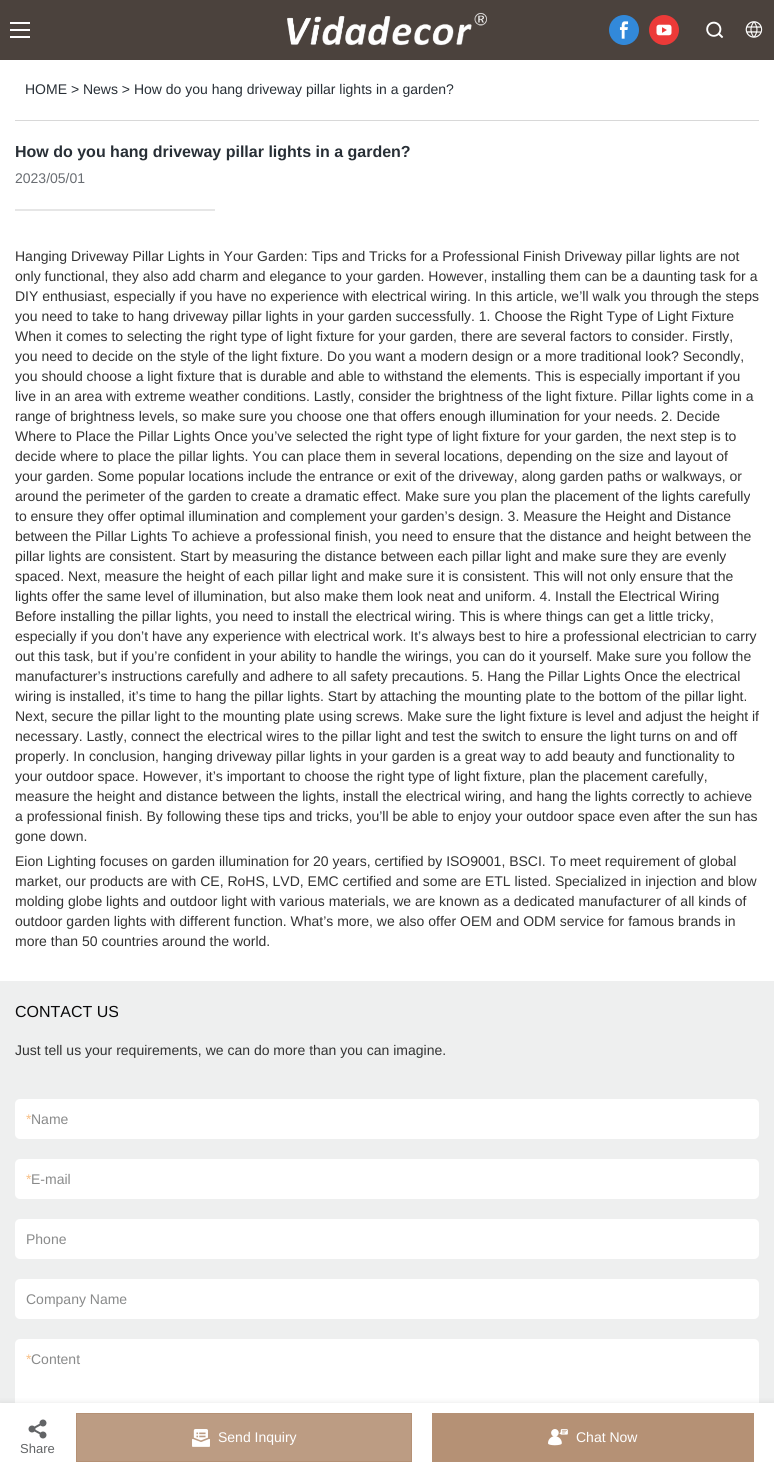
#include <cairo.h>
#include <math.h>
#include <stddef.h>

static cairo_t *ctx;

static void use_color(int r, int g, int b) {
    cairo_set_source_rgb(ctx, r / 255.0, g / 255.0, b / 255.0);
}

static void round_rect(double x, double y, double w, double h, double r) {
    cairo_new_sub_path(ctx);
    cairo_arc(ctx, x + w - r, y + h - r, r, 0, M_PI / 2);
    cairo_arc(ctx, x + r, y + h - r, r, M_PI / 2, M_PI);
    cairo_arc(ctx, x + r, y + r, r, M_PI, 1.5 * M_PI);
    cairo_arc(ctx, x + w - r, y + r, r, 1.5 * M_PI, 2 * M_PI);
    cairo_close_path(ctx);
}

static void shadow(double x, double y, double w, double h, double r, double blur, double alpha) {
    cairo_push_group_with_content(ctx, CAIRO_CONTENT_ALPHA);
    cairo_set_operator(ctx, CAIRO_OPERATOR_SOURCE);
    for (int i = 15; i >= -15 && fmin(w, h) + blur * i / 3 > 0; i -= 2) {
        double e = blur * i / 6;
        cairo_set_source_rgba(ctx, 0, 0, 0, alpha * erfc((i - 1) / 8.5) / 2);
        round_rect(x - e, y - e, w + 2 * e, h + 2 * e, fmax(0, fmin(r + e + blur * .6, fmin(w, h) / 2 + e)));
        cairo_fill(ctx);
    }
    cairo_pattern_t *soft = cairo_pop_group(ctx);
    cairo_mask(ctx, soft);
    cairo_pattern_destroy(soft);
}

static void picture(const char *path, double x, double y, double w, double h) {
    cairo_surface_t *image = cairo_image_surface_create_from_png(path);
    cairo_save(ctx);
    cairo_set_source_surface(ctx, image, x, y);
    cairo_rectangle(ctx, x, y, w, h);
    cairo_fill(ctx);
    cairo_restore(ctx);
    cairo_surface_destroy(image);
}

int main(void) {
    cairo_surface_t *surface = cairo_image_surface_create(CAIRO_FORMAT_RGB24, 774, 1472);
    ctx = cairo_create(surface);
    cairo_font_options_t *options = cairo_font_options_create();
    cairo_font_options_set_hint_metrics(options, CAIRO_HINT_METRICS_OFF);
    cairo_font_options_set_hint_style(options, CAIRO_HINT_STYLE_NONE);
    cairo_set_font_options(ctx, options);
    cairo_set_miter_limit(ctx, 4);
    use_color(255, 255, 255);
    cairo_paint(ctx);
    use_color(75, 66, 61);
    cairo_rectangle(ctx, 0, 0, 774, 60);
    cairo_fill(ctx);
    use_color(255, 255, 255);
    cairo_rectangle(ctx, 10, 22, 20, 2);
    cairo_fill(ctx);
    cairo_rectangle(ctx, 10, 29, 20, 2);
    cairo_fill(ctx);
    cairo_rectangle(ctx, 10, 36, 20, 2);
    cairo_fill(ctx);
    picture("img1.png", 287, 12, 200, 34);
    picture("img2.png", 609, 15, 30, 30);
    picture("img3.png", 649, 15, 30, 30);
    picture("img4.png", 706, 21, 18, 17);
    picture("img5.png", 745, 21, 18, 17);
    use_color(216, 216, 216);
    cairo_rectangle(ctx, 15, 120, 744, 1);
    cairo_fill(ctx);
    cairo_select_font_face(ctx, "Liberation Sans", CAIRO_FONT_SLANT_NORMAL, CAIRO_FONT_WEIGHT_NORMAL);
    cairo_set_font_size(ctx, 14);
    use_color(40, 47, 54);
    cairo_move_to(ctx, 25, 94);
    cairo_show_text(ctx, "HOME > News > How do you hang driveway pillar lights in a garden?");
    cairo_select_font_face(ctx, "Liberation Sans", CAIRO_FONT_SLANT_NORMAL, CAIRO_FONT_WEIGHT_BOLD);
    cairo_set_font_size(ctx, 16);
    cairo_move_to(ctx, 15, 157);
    cairo_show_text(ctx, "How do you hang driveway pillar lights in a garden?");
    cairo_select_font_face(ctx, "Liberation Sans", CAIRO_FONT_SLANT_NORMAL, CAIRO_FONT_WEIGHT_NORMAL);
    cairo_set_font_size(ctx, 14);
    use_color(105, 109, 114);
    cairo_move_to(ctx, 15, 183);
    cairo_show_text(ctx, "2023/05/01");
    use_color(230, 230, 230);
    cairo_rectangle(ctx, 15, 209, 200, 2);
    cairo_fill(ctx);
    use_color(51, 51, 51);
    cairo_move_to(ctx, 15, 261);
    cairo_show_text(ctx, "Hanging Driveway Pillar Lights in Your Garden: Tips and Tricks for a Professional Finish Driveway pillar lights are not");
    cairo_move_to(ctx, 15, 281);
    cairo_show_text(ctx, "only functional, they also add charm and elegance to your garden. However, installing them can be a daunting task for a");
    cairo_move_to(ctx, 15, 301);
    cairo_show_text(ctx, "DIY enthusiast, especially if you have no experience with electrical wiring. In this article, we’ll walk you through the steps");
    cairo_move_to(ctx, 15, 321);
    cairo_show_text(ctx, "you need to take to hang driveway pillar lights in your garden successfully. 1. Choose the Right Type of Light Fixture");
    cairo_move_to(ctx, 15, 341);
    cairo_show_text(ctx, "When it comes to selecting the right type of light fixture for your garden, there are several factors to consider. Firstly,");
    cairo_move_to(ctx, 15, 361);
    cairo_show_text(ctx, "you need to decide on the style of the light fixture. Do you want a modern design or a more traditional look? Secondly,");
    cairo_move_to(ctx, 15, 381);
    cairo_show_text(ctx, "you should choose a light fixture that is durable and able to withstand the elements. This is especially important if you");
    cairo_move_to(ctx, 15, 401);
    cairo_show_text(ctx, "live in an area with extreme weather conditions. Lastly, consider the brightness of the light fixture. Pillar lights come in a");
    cairo_move_to(ctx, 15, 421);
    cairo_show_text(ctx, "range of brightness levels, so make sure you choose one that offers enough illumination for your needs. 2. Decide");
    cairo_move_to(ctx, 15, 441);
    cairo_show_text(ctx, "Where to Place the Pillar Lights Once you’ve selected the right type of light fixture for your garden, the next step is to");
    cairo_move_to(ctx, 15, 461);
    cairo_show_text(ctx, "decide where to place the pillar lights. You can place them in several locations, depending on the size and layout of");
    cairo_move_to(ctx, 15, 481);
    cairo_show_text(ctx, "your garden. Some popular locations include the entrance or exit of the driveway, along garden paths or walkways, or");
    cairo_move_to(ctx, 15, 501);
    cairo_show_text(ctx, "around the perimeter of the garden to create a dramatic effect. Make sure you plan the placement of the lights carefully");
    cairo_move_to(ctx, 15, 521);
    cairo_show_text(ctx, "to ensure they offer optimal illumination and complement your garden’s design. 3. Measure the Height and Distance");
    cairo_move_to(ctx, 15, 541);
    cairo_show_text(ctx, "between the Pillar Lights To achieve a professional finish, you need to ensure that the distance and height between the");
    cairo_move_to(ctx, 15, 561);
    cairo_show_text(ctx, "pillar lights are consistent. Start by measuring the distance between each pillar light and make sure they are evenly");
    cairo_move_to(ctx, 15, 581);
    cairo_show_text(ctx, "spaced. Next, measure the height of each pillar light and make sure it is consistent. This will not only ensure that the");
    cairo_move_to(ctx, 15, 601);
    cairo_show_text(ctx, "lights offer the same level of illumination, but also make them look neat and uniform. 4. Install the Electrical Wiring");
    cairo_move_to(ctx, 15, 621);
    cairo_show_text(ctx, "Before installing the pillar lights, you need to install the electrical wiring. This is where things can get a little tricky,");
    cairo_move_to(ctx, 15, 641);
    cairo_show_text(ctx, "especially if you don’t have any experience with electrical work. It’s always best to hire a professional electrician to carry");
    cairo_move_to(ctx, 15, 661);
    cairo_show_text(ctx, "out this task, but if you’re confident in your ability to handle the wirings, you can do it yourself. Make sure you follow the");
    cairo_move_to(ctx, 15, 681);
    cairo_show_text(ctx, "manufacturer’s instructions carefully and adhere to all safety precautions. 5. Hang the Pillar Lights Once the electrical");
    cairo_move_to(ctx, 15, 701);
    cairo_show_text(ctx, "wiring is installed, it’s time to hang the pillar lights. Start by attaching the mounting plate to the bottom of the pillar light.");
    cairo_move_to(ctx, 15, 721);
    cairo_show_text(ctx, "Next, secure the pillar light to the mounting plate using screws. Make sure the light fixture is level and adjust the height if");
    cairo_move_to(ctx, 15, 741);
    cairo_show_text(ctx, "necessary. Lastly, connect the electrical wires to the pillar light and test the switch to ensure the light turns on and off");
    cairo_move_to(ctx, 15, 761);
    cairo_show_text(ctx, "properly. In conclusion, hanging driveway pillar lights in your garden is a great way to add beauty and functionality to");
    cairo_move_to(ctx, 15, 781);
    cairo_show_text(ctx, "your outdoor space. However, it’s important to choose the right type of light fixture, plan the placement carefully,");
    cairo_move_to(ctx, 15, 801);
    cairo_show_text(ctx, "measure the height and distance between the lights, install the electrical wiring, and hang the lights correctly to achieve");
    cairo_move_to(ctx, 15, 821);
    cairo_show_text(ctx, "a professional finish. By following these tips and tricks, you’ll be able to enjoy your outdoor space even after the sun has");
    cairo_move_to(ctx, 15, 841);
    cairo_show_text(ctx, "gone down.");
    cairo_move_to(ctx, 15, 866);
    cairo_show_text(ctx, "Eion Lighting focuses on garden illumination for 20 years, certified by ISO9001, BSCI. To meet requirement of global");
    cairo_move_to(ctx, 15, 886);
    cairo_show_text(ctx, "market, our products are with CE, RoHS, LVD, EMC certified and some are ETL listed. Specialized in injection and blow");
    cairo_move_to(ctx, 15, 906);
    cairo_show_text(ctx, "molding globe lights and outdoor light with various materials, we are known as a dedicated manufacturer of all kinds of");
    cairo_move_to(ctx, 15, 926);
    cairo_show_text(ctx, "outdoor garden lights with different function. What’s more, we also offer OEM and ODM service for famous brands in");
    cairo_move_to(ctx, 15, 946);
    cairo_show_text(ctx, "more than 50 countries around the world.");
    use_color(238, 239, 239);
    cairo_rectangle(ctx, 0, 981, 774, 422);
    cairo_fill(ctx);
    cairo_set_font_size(ctx, 16);
    use_color(9, 9, 10);
    cairo_move_to(ctx, 15, 1017);
    cairo_show_text(ctx, "CONTACT US");
    cairo_set_font_size(ctx, 14);
    use_color(51, 51, 51);
    cairo_move_to(ctx, 15, 1055);
    cairo_show_text(ctx, "Just tell us your requirements, we can do more than you can imagine.");
    use_color(255, 255, 255);
    round_rect(15, 1099, 744, 40, 5);
    cairo_fill(ctx);
    use_color(248, 191, 133);
    cairo_move_to(ctx, 26, 1124);
    cairo_show_text(ctx, "*");
    use_color(137, 138, 138);
    cairo_move_to(ctx, 31, 1124);
    cairo_show_text(ctx, "Name");
    use_color(255, 255, 255);
    round_rect(15, 1159, 744, 40, 5);
    cairo_fill(ctx);
    use_color(248, 191, 133);
    cairo_move_to(ctx, 26, 1184);
    cairo_show_text(ctx, "*");
    use_color(137, 138, 138);
    cairo_move_to(ctx, 31, 1184);
    cairo_show_text(ctx, "E-mail");
    use_color(255, 255, 255);
    round_rect(15, 1219, 744, 40, 5);
    cairo_fill(ctx);
    use_color(137, 138, 138);
    cairo_move_to(ctx, 26, 1244);
    cairo_show_text(ctx, "Phone");
    use_color(255, 255, 255);
    round_rect(15, 1279, 744, 40, 5);
    cairo_fill(ctx);
    use_color(137, 138, 138);
    cairo_move_to(ctx, 26, 1304);
    cairo_show_text(ctx, "Company Name");
    use_color(255, 255, 255);
    round_rect(15, 1339, 744, 74, 5);
    cairo_fill(ctx);
    use_color(248, 191, 133);
    cairo_move_to(ctx, 26, 1364);
    cairo_show_text(ctx, "*");
    use_color(137, 138, 138);
    cairo_move_to(ctx, 31, 1364);
    cairo_show_text(ctx, "Content");
    use_color(0, 0, 0);
    shadow(0, 1403, 774, 69, 0, 3, 0.1);
    use_color(255, 255, 255);
    cairo_rectangle(ctx, 0, 1403, 774, 69);
    cairo_fill(ctx);
    use_color(181, 145, 117);
    cairo_rectangle(ctx, 76, 1413, 336, 49);
    cairo_fill(ctx);
    use_color(188, 156, 131);
    cairo_rectangle(ctx, 77, 1414, 334, 47);
    cairo_fill(ctx);
    picture("img6.png", 192, 1429, 18, 18);
    use_color(255, 255, 255);
    cairo_move_to(ctx, 218, 1442);
    cairo_show_text(ctx, "Send Inquiry");
    use_color(181, 145, 117);
    cairo_rectangle(ctx, 432, 1413, 322, 49);
    cairo_fill(ctx);
    picture("img7.png", 548, 1429, 20, 17);
    use_color(255, 255, 255);
    cairo_move_to(ctx, 576, 1442);
    cairo_show_text(ctx, "Chat Now");
    picture("img8.png", 28, 1419, 19, 20);
    cairo_set_font_size(ctx, 13);
    use_color(98, 100, 102);
    cairo_move_to(ctx, 20, 1453);
    cairo_show_text(ctx, "Share");
    cairo_surface_write_to_png(surface, "result.png");
    cairo_font_options_destroy(options);
    cairo_destroy(ctx);
    cairo_surface_destroy(surface);
    return 0;
}
